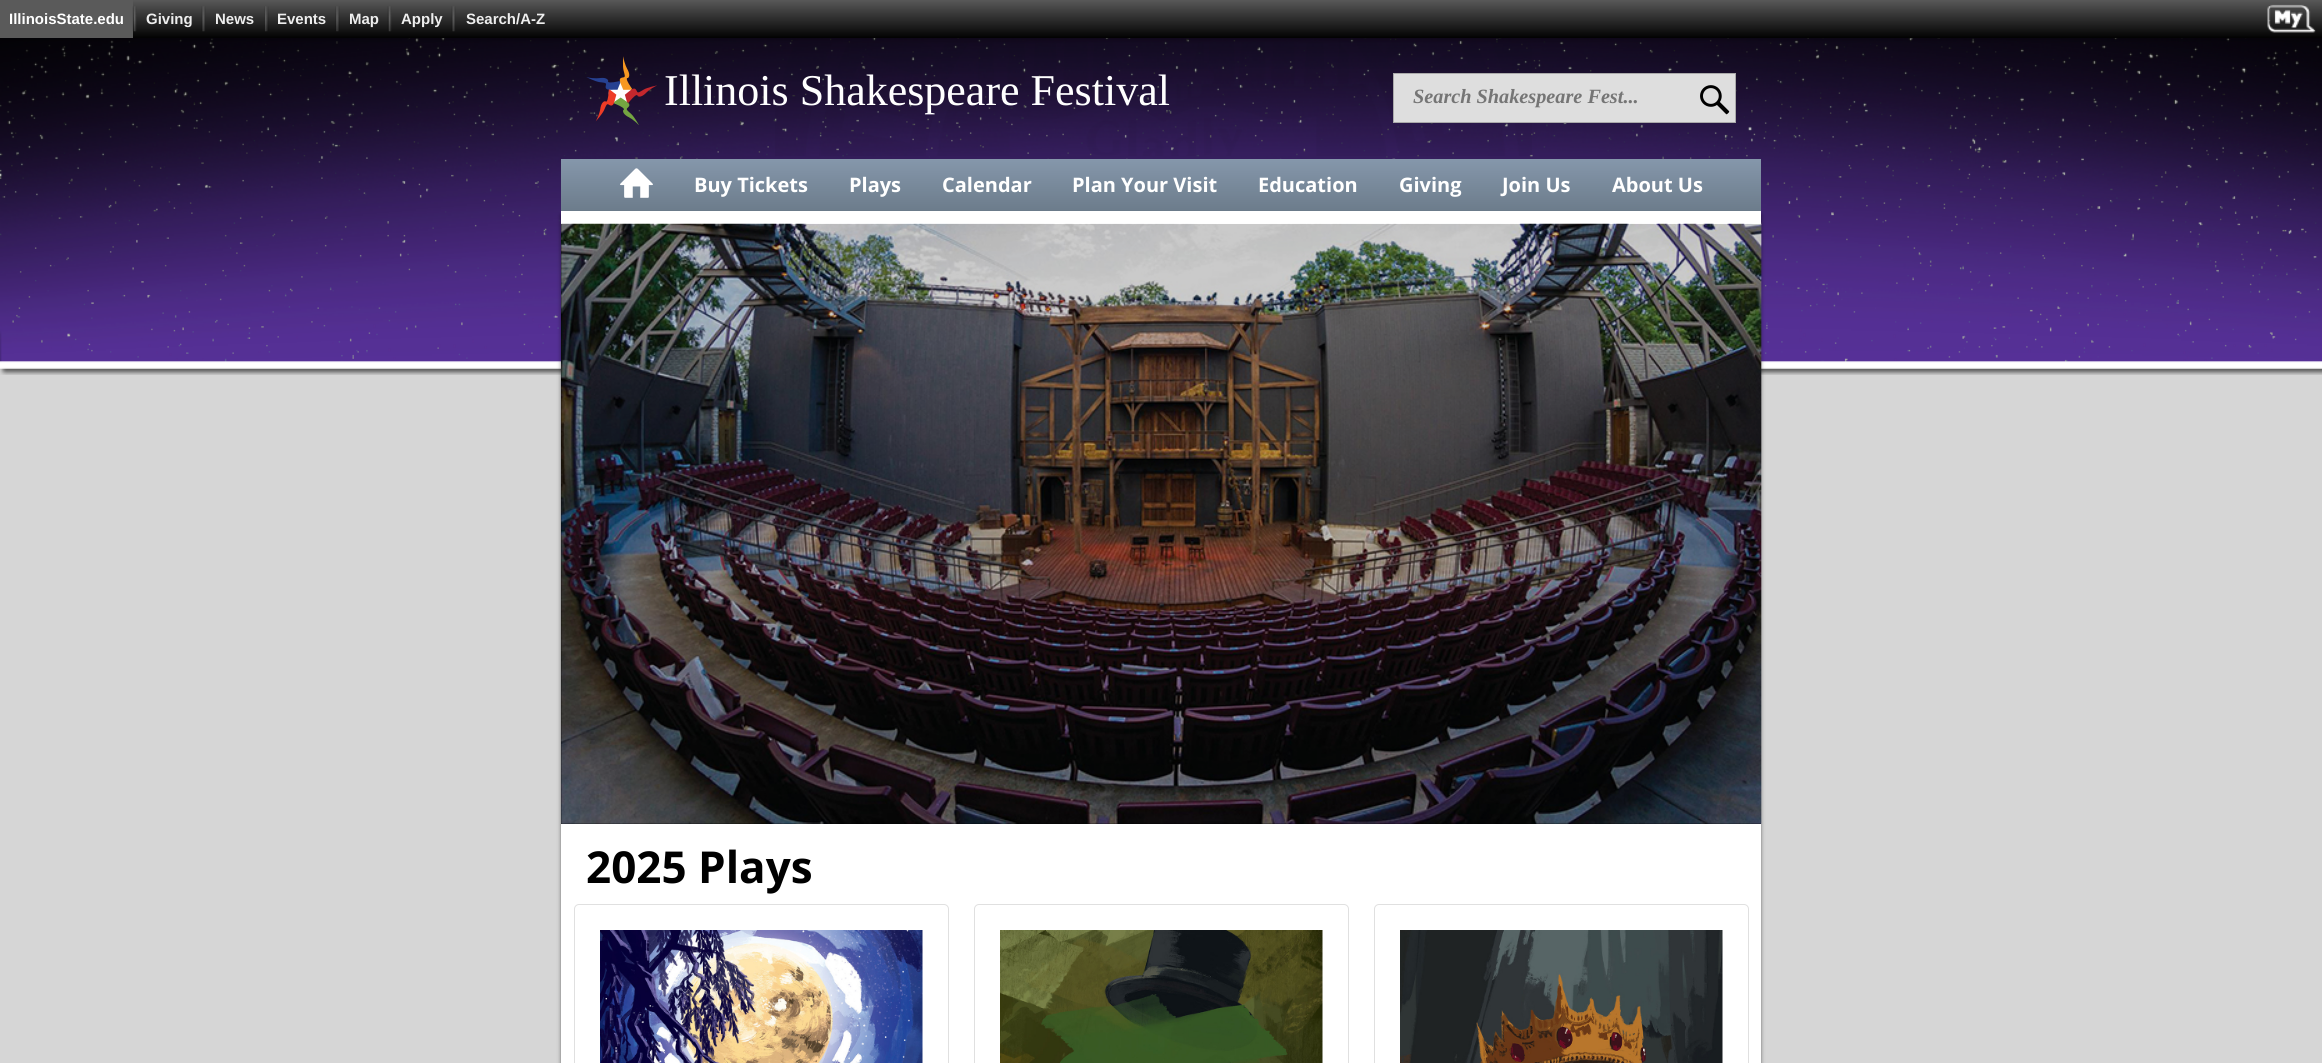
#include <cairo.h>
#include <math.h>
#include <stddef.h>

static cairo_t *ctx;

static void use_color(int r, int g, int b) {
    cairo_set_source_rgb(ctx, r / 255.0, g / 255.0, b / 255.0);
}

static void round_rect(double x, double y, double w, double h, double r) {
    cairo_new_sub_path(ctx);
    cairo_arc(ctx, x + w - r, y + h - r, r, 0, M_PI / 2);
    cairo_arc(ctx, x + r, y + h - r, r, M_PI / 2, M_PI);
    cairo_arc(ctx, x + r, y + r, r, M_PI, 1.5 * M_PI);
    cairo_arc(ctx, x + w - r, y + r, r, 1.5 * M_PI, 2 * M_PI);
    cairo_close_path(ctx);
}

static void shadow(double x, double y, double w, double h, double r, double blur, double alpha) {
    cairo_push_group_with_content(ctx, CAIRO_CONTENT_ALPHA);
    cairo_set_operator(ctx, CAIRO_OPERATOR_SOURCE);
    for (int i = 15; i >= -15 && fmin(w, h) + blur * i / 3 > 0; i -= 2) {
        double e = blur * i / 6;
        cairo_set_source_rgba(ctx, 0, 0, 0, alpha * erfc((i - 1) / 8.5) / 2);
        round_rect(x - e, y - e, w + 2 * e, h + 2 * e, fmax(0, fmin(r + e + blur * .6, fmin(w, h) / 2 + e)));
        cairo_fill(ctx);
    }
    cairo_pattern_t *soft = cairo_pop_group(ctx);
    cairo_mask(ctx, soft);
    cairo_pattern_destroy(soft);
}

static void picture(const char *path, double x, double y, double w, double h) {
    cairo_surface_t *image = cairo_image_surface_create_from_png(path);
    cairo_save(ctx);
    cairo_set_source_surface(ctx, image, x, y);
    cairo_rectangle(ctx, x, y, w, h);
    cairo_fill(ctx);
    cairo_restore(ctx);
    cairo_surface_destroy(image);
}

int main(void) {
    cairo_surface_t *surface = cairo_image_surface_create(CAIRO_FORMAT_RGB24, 2322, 1063);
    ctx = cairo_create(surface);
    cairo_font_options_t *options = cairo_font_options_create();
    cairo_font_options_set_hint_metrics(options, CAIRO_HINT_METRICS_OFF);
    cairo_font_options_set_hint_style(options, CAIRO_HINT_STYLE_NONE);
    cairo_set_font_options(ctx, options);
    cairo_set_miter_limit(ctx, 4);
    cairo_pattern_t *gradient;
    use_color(214, 214, 214);
    cairo_paint(ctx);
    picture("img1.png", 0, 38, 2322, 337);
    picture("img9.png", 775, 42, 757, 114);
    use_color(0, 0, 0);
    shadow(0, 0, 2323, 38, 0, 3, 0.4);
    gradient = cairo_pattern_create_linear(1161, 0, 1161, 38);
    cairo_pattern_add_color_stop_rgba(gradient, 0, 0.345, 0.345, 0.345, 1);
    cairo_pattern_add_color_stop_rgba(gradient, 1, 0.008, 0.008, 0.008, 1);
    cairo_set_source(ctx, gradient);
    cairo_pattern_destroy(gradient);
    cairo_rectangle(ctx, 133, 0, 2189, 38);
    cairo_fill(ctx);
    use_color(90, 90, 90);
    cairo_rectangle(ctx, 0, 0, 133, 38);
    cairo_fill(ctx);
    cairo_select_font_face(ctx, "Liberation Sans", CAIRO_FONT_SLANT_NORMAL, CAIRO_FONT_WEIGHT_BOLD);
    cairo_set_font_size(ctx, 15);
    use_color(255, 255, 255);
    cairo_move_to(ctx, 9, 24);
    cairo_show_text(ctx, "IllinoisState.edu");
    picture("img2.png", 132, 6, 5, 26);
    use_color(238, 238, 238);
    cairo_move_to(ctx, 146, 24);
    cairo_show_text(ctx, "Giving");
    picture("img3.png", 201, 6, 5, 26);
    cairo_move_to(ctx, 215, 24);
    cairo_show_text(ctx, "News");
    picture("img4.png", 264, 6, 5, 26);
    cairo_move_to(ctx, 277, 24);
    cairo_show_text(ctx, "Events");
    picture("img5.png", 335, 6, 5, 26);
    cairo_move_to(ctx, 349, 24);
    cairo_show_text(ctx, "Map");
    picture("img6.png", 387, 6, 5, 26);
    cairo_move_to(ctx, 401, 24);
    cairo_show_text(ctx, "Apply");
    picture("img7.png", 451, 6, 5, 26);
    cairo_move_to(ctx, 466, 24);
    cairo_show_text(ctx, "Search/A-Z");
    picture("img8.png", 2267, 4, 49, 29);
    picture("img10.png", 586, 56, 71, 69);
    cairo_select_font_face(ctx, "Liberation Serif", CAIRO_FONT_SLANT_NORMAL, CAIRO_FONT_WEIGHT_NORMAL);
    cairo_set_font_size(ctx, 44);
    use_color(255, 255, 255);
    cairo_move_to(ctx, 664, 105);
    cairo_show_text(ctx, "Illinois Shakespeare Festival");
    use_color(222, 222, 222);
    cairo_rectangle(ctx, 1393.5, 73.5, 342, 49);
    cairo_fill_preserve(ctx);
    use_color(170, 170, 170);
    cairo_set_line_width(ctx, 1);
    cairo_stroke(ctx);
    cairo_select_font_face(ctx, "Liberation Serif", CAIRO_FONT_SLANT_ITALIC, CAIRO_FONT_WEIGHT_BOLD);
    cairo_set_font_size(ctx, 20.25);
    use_color(117, 117, 117);
    cairo_move_to(ctx, 1413, 103);
    cairo_show_text(ctx, "Search Shakespeare Fest...");
    picture("img11.png", 1700, 85, 30, 30);
    gradient = cairo_pattern_create_linear(1161, 159, 1161, 211);
    cairo_pattern_add_color_stop_rgba(gradient, 0, 0.522, 0.592, 0.671, 1);
    cairo_pattern_add_color_stop_rgba(gradient, 1, 0.424, 0.486, 0.545, 1);
    cairo_set_source(ctx, gradient);
    cairo_pattern_destroy(gradient);
    cairo_rectangle(ctx, 561, 159, 1200, 52);
    cairo_fill(ctx);
    picture("img12.png", 620, 168, 33, 30);
    cairo_select_font_face(ctx, "Open Sans", CAIRO_FONT_SLANT_NORMAL, CAIRO_FONT_WEIGHT_BOLD);
    cairo_set_font_size(ctx, 20);
    use_color(255, 255, 255);
    cairo_move_to(ctx, 694, 192);
    cairo_show_text(ctx, "Buy Tickets");
    cairo_move_to(ctx, 849, 192);
    cairo_show_text(ctx, "Plays");
    cairo_move_to(ctx, 942, 192);
    cairo_show_text(ctx, "Calendar");
    cairo_move_to(ctx, 1072, 192);
    cairo_show_text(ctx, "Plan Your Visit");
    cairo_move_to(ctx, 1258, 192);
    cairo_show_text(ctx, "Education");
    cairo_move_to(ctx, 1399, 192);
    cairo_show_text(ctx, "Giving");
    cairo_move_to(ctx, 1502, 192);
    cairo_show_text(ctx, "Join Us");
    cairo_move_to(ctx, 1612, 192);
    cairo_show_text(ctx, "About Us");
    use_color(0, 0, 0);
    shadow(561, 215, 1200, 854, 0, 2, 0.5);
    use_color(255, 255, 255);
    cairo_rectangle(ctx, 561, 211, 1200, 852);
    cairo_fill(ctx);
    use_color(0, 0, 0);
    cairo_rectangle(ctx, 561, 224, 1200, 600);
    cairo_fill(ctx);
    picture("img13.png", 561, 223, 1201, 601);
    cairo_set_source_rgba(ctx, 0, 0, 0, 0.2);
    cairo_rectangle(ctx, 561, 224, 1200, 600);
    cairo_fill(ctx);
    cairo_set_font_size(ctx, 44);
    use_color(0, 0, 0);
    cairo_move_to(ctx, 586, 883);
    cairo_show_text(ctx, "2025 Plays");
    round_rect(574.5, 904.5, 374, 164, 4.5);
    use_color(224, 224, 224);
    cairo_stroke(ctx);
    picture("img14.png", 600, 930, 323, 133);
    round_rect(974.5, 904.5, 374, 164, 4.5);
    cairo_stroke(ctx);
    picture("img15.png", 1000, 930, 323, 133);
    round_rect(1374.5, 904.5, 374, 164, 4.5);
    cairo_stroke(ctx);
    picture("img16.png", 1400, 930, 323, 133);
    cairo_surface_write_to_png(surface, "result.png");
    cairo_font_options_destroy(options);
    cairo_destroy(ctx);
    cairo_surface_destroy(surface);
    return 0;
}
